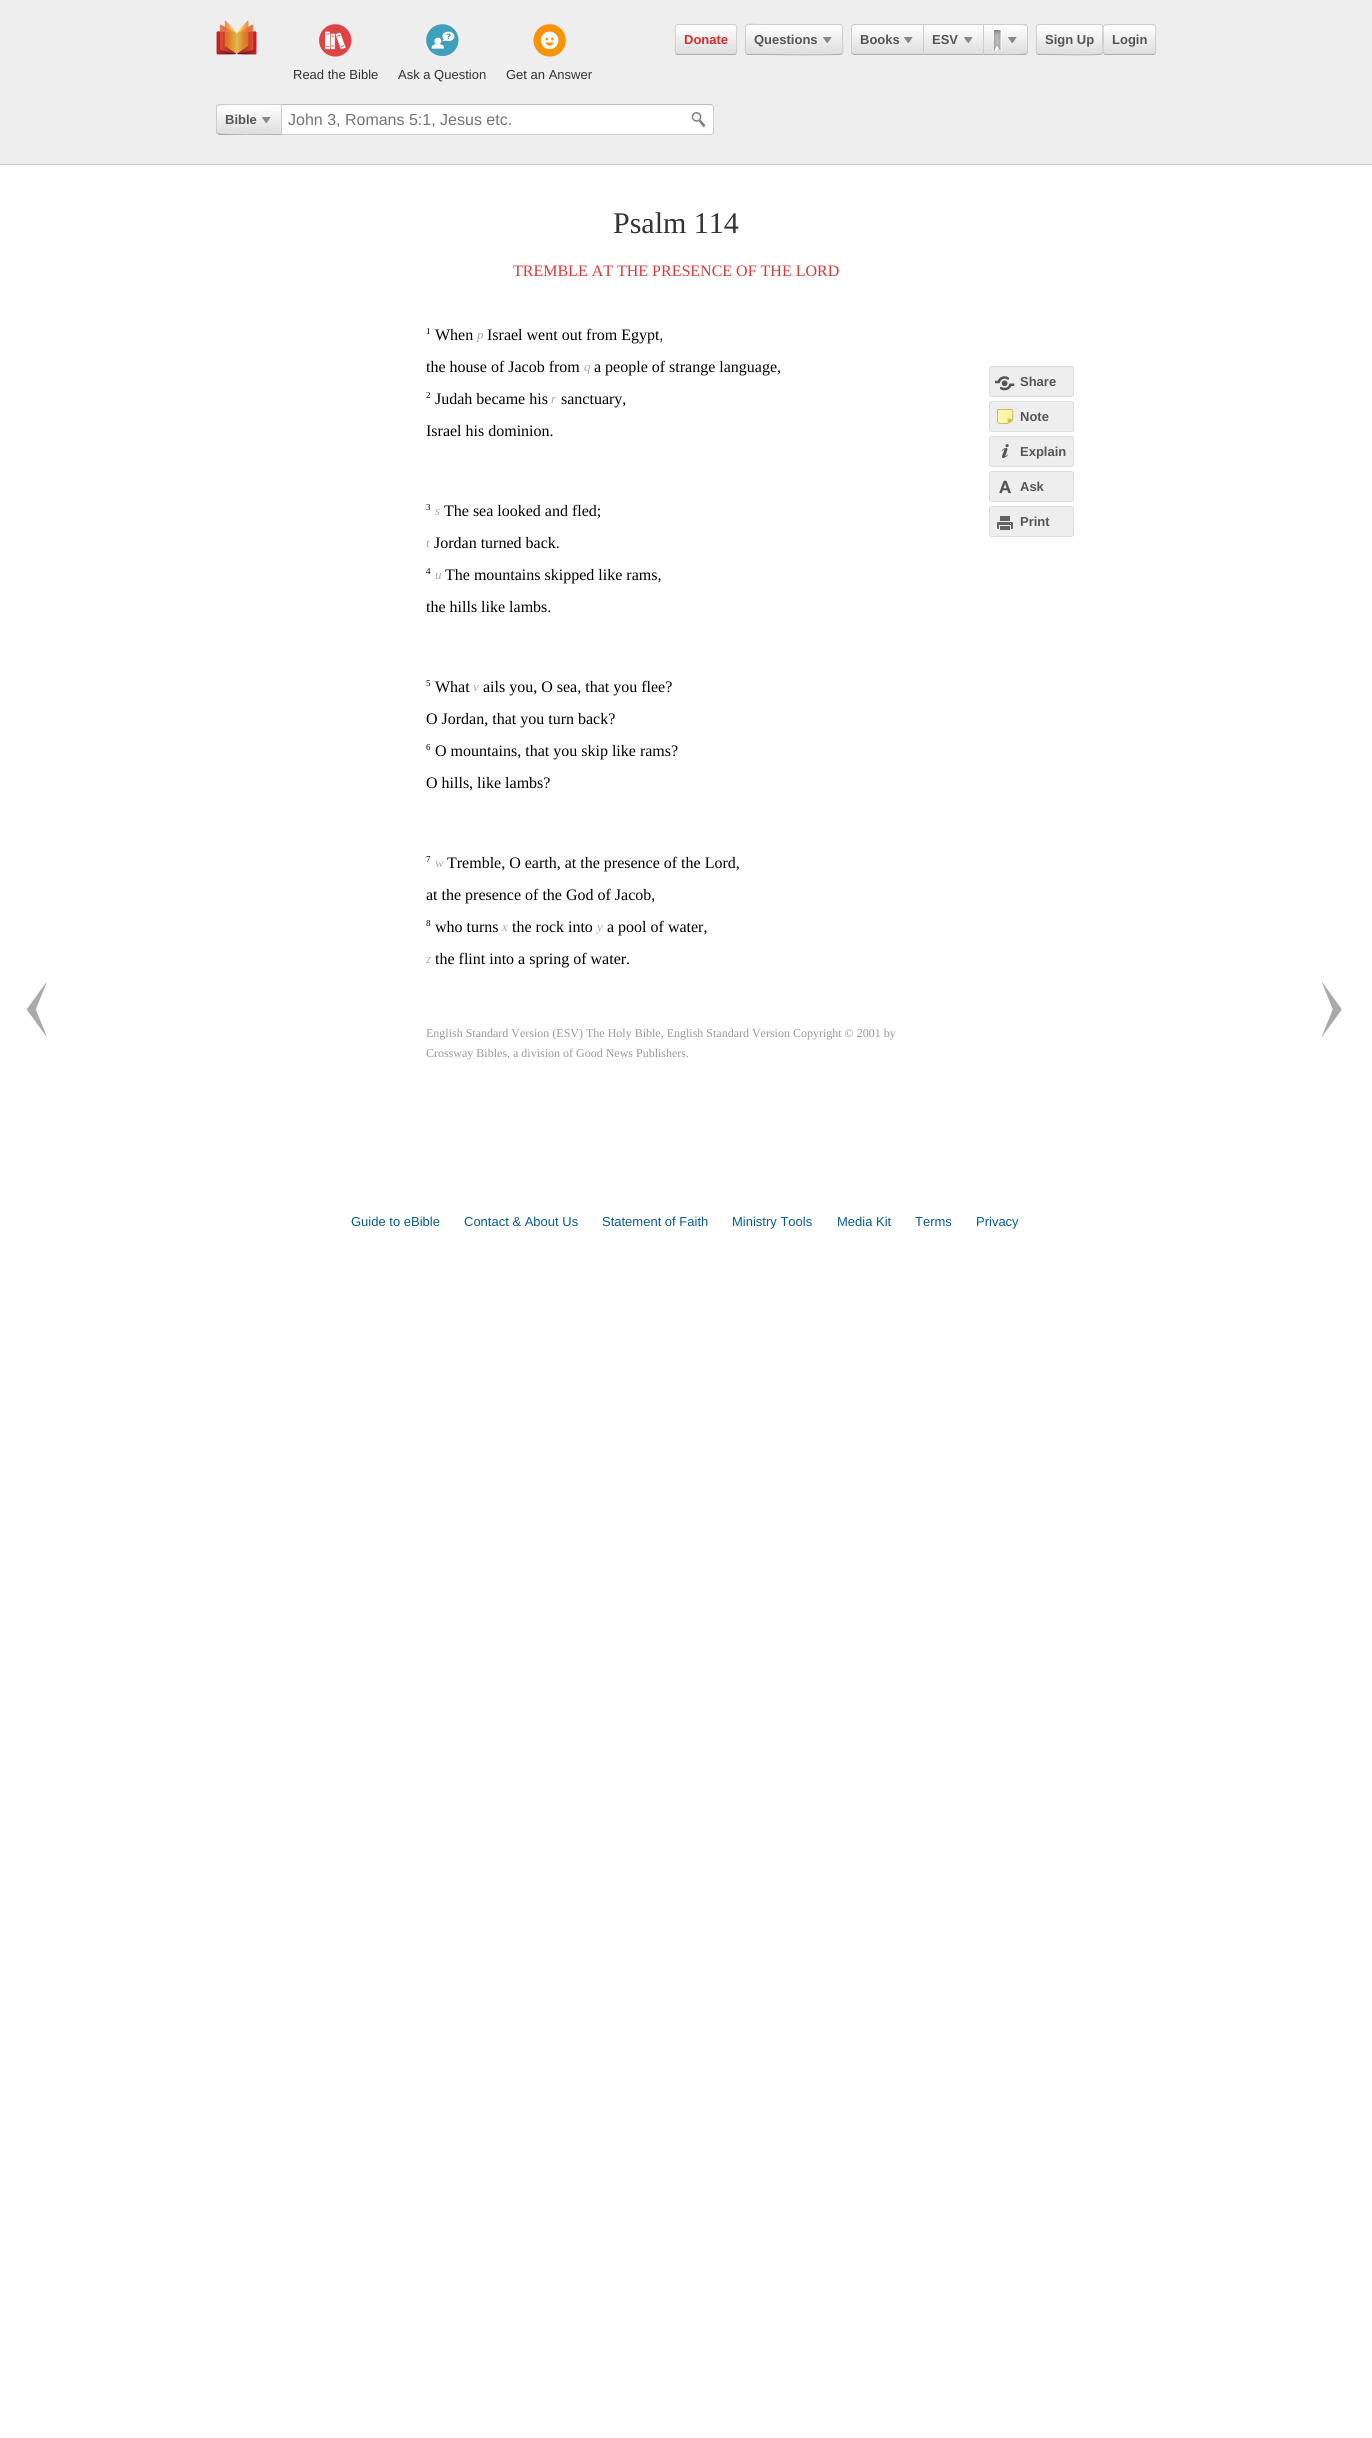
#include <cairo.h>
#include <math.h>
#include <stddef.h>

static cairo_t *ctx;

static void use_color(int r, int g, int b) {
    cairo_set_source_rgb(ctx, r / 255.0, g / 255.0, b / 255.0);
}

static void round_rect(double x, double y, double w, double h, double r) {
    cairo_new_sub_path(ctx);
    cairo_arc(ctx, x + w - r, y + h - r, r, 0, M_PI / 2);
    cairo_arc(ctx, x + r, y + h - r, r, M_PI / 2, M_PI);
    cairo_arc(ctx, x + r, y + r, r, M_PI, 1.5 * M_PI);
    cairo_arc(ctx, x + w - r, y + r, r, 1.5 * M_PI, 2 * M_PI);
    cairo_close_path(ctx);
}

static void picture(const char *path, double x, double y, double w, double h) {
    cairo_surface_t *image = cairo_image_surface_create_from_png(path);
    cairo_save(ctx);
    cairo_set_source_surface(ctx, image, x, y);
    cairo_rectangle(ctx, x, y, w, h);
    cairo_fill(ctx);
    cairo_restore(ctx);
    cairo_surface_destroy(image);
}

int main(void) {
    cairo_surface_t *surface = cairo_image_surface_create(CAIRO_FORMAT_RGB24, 1372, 2438);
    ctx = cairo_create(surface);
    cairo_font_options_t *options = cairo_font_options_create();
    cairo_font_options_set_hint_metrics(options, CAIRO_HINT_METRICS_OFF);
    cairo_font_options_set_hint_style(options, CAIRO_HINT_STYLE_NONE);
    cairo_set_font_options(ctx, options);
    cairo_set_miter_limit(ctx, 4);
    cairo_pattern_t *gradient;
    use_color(255, 255, 255);
    cairo_paint(ctx);
    use_color(238, 238, 238);
    cairo_rectangle(ctx, 0, 0, 1372, 164);
    cairo_fill(ctx);
    use_color(204, 204, 204);
    cairo_rectangle(ctx, 0, 164, 1372, 1);
    cairo_fill(ctx);
    picture("img1.png", 216, 20, 41, 35);
    cairo_save(ctx);
    round_rect(675, 24, 62, 31, 3);
    cairo_clip(ctx);
    gradient = cairo_pattern_create_linear(706, 25, 706, 54);
    cairo_pattern_add_color_stop_rgba(gradient, 0, 1, 1, 1, 1);
    cairo_pattern_add_color_stop_rgba(gradient, 1, 0.871, 0.871, 0.871, 1);
    cairo_set_source(ctx, gradient);
    cairo_pattern_destroy(gradient);
    cairo_rectangle(ctx, 675, 25, 62, 29);
    cairo_fill(ctx);
    cairo_restore(ctx);
    cairo_new_path(ctx);
    cairo_move_to(ctx, 736, 54);
    cairo_line_to(ctx, 734, 54.5);
    cairo_line_to(ctx, 678, 54.5);
    cairo_line_to(ctx, 676, 54);
    use_color(170, 170, 170);
    cairo_set_line_width(ctx, 1);
    cairo_stroke(ctx);
    cairo_new_path(ctx);
    cairo_move_to(ctx, 676, 54);
    cairo_curve_to(ctx, 674.5, 52, 675.5, 42, 675.5, 39.5);
    cairo_curve_to(ctx, 675.5, 23, 672, 24.5, 687.5, 24.5);
    cairo_line_to(ctx, 724.5, 24.5);
    cairo_curve_to(ctx, 740, 24.5, 736.5, 23, 736.5, 39.5);
    cairo_curve_to(ctx, 736.5, 42, 737.5, 52, 736, 54);
    use_color(204, 204, 204);
    cairo_stroke(ctx);
    cairo_select_font_face(ctx, "Liberation Sans", CAIRO_FONT_SLANT_NORMAL, CAIRO_FONT_WEIGHT_BOLD);
    cairo_set_font_size(ctx, 13);
    use_color(210, 46, 46);
    cairo_move_to(ctx, 684, 44);
    cairo_show_text(ctx, "Donate");
    cairo_save(ctx);
    round_rect(745, 24, 98, 31, 3);
    cairo_clip(ctx);
    gradient = cairo_pattern_create_linear(794, -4, 794, 25);
    cairo_pattern_add_color_stop_rgba(gradient, 0, 1, 1, 1, 1);
    cairo_pattern_add_color_stop_rgba(gradient, 1, 0.871, 0.871, 0.871, 1);
    cairo_set_source(ctx, gradient);
    cairo_pattern_destroy(gradient);
    cairo_rectangle(ctx, 745, 24, 98, 1);
    cairo_fill(ctx);
    gradient = cairo_pattern_create_linear(794, 25, 794, 54);
    cairo_pattern_add_color_stop_rgba(gradient, 0, 1, 1, 1, 1);
    cairo_pattern_add_color_stop_rgba(gradient, 1, 0.871, 0.871, 0.871, 1);
    cairo_set_source(ctx, gradient);
    cairo_pattern_destroy(gradient);
    cairo_rectangle(ctx, 745, 25, 98, 29);
    cairo_fill(ctx);
    gradient = cairo_pattern_create_linear(794, 54, 794, 83);
    cairo_pattern_add_color_stop_rgba(gradient, 0, 1, 1, 1, 1);
    cairo_pattern_add_color_stop_rgba(gradient, 1, 0.871, 0.871, 0.871, 1);
    cairo_set_source(ctx, gradient);
    cairo_pattern_destroy(gradient);
    cairo_rectangle(ctx, 745, 54, 98, 1);
    cairo_fill(ctx);
    cairo_restore(ctx);
    cairo_new_path(ctx);
    cairo_move_to(ctx, 842, 54);
    cairo_line_to(ctx, 841.5, 54);
    cairo_curve_to(ctx, 839.5, 55.5, 771.5, 54.5, 763.5, 54.5);
    cairo_line_to(ctx, 748, 54.5);
    cairo_line_to(ctx, 746, 54);
    use_color(170, 170, 170);
    cairo_stroke(ctx);
    cairo_new_path(ctx);
    cairo_move_to(ctx, 746, 54);
    cairo_curve_to(ctx, 744.5, 52, 745.5, 42, 745.5, 39.5);
    cairo_curve_to(ctx, 745.5, 20.5, 742.5, 24.5, 763.5, 24.5);
    cairo_line_to(ctx, 840, 24.5);
    cairo_curve_to(ctx, 843.5, 24.5, 842.5, 29.5, 842.5, 31);
    cairo_line_to(ctx, 842.5, 43.5);
    cairo_curve_to(ctx, 842.5, 46, 844, 52, 842, 54);
    use_color(204, 204, 204);
    cairo_stroke(ctx);
    use_color(85, 85, 85);
    cairo_move_to(ctx, 754, 44);
    cairo_show_text(ctx, "Questions");
    picture("img2.png", 823, 37, 9, 6);
    cairo_save(ctx);
    cairo_new_path(ctx);
    cairo_move_to(ctx, 854, 24);
    cairo_line_to(ctx, 924, 24);
    cairo_line_to(ctx, 924, 55);
    cairo_line_to(ctx, 854, 55);
    cairo_curve_to(ctx, 852.5, 55, 851, 53.5, 851, 52);
    cairo_line_to(ctx, 851, 27);
    cairo_curve_to(ctx, 851, 25.5, 852.5, 24, 854, 24);
    cairo_close_path(ctx);
    cairo_clip(ctx);
    gradient = cairo_pattern_create_linear(888, -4, 888, 25);
    cairo_pattern_add_color_stop_rgba(gradient, 0, 1, 1, 1, 1);
    cairo_pattern_add_color_stop_rgba(gradient, 1, 0.871, 0.871, 0.871, 1);
    cairo_set_source(ctx, gradient);
    cairo_pattern_destroy(gradient);
    cairo_rectangle(ctx, 851, 24, 3, 1);
    cairo_fill(ctx);
    gradient = cairo_pattern_create_linear(888, 25, 888, 54);
    cairo_pattern_add_color_stop_rgba(gradient, 0, 1, 1, 1, 1);
    cairo_pattern_add_color_stop_rgba(gradient, 1, 0.871, 0.871, 0.871, 1);
    cairo_set_source(ctx, gradient);
    cairo_pattern_destroy(gradient);
    cairo_rectangle(ctx, 851, 25, 72, 29);
    cairo_fill(ctx);
    gradient = cairo_pattern_create_linear(888, 54, 888, 83);
    cairo_pattern_add_color_stop_rgba(gradient, 0, 1, 1, 1, 1);
    cairo_pattern_add_color_stop_rgba(gradient, 1, 0.871, 0.871, 0.871, 1);
    cairo_set_source(ctx, gradient);
    cairo_pattern_destroy(gradient);
    cairo_rectangle(ctx, 851, 54, 3, 1);
    cairo_fill(ctx);
    cairo_restore(ctx);
    use_color(204, 204, 204);
    cairo_new_path(ctx);
    cairo_move_to(ctx, 854, 24);
    cairo_line_to(ctx, 852, 25);
    cairo_line_to(ctx, 853, 26);
    cairo_line_to(ctx, 854, 25);
    cairo_line_to(ctx, 923, 25);
    cairo_line_to(ctx, 924, 24);
    cairo_close_path(ctx);
    cairo_fill(ctx);
    use_color(170, 170, 170);
    cairo_new_path(ctx);
    cairo_move_to(ctx, 924, 55);
    cairo_line_to(ctx, 923, 54);
    cairo_line_to(ctx, 854, 54);
    cairo_line_to(ctx, 853, 53);
    cairo_line_to(ctx, 852, 54);
    cairo_line_to(ctx, 854, 55);
    cairo_close_path(ctx);
    cairo_fill(ctx);
    use_color(204, 204, 204);
    cairo_new_path(ctx);
    cairo_move_to(ctx, 851, 27);
    cairo_line_to(ctx, 851, 52);
    cairo_curve_to(ctx, 851, 53, 851, 54, 852, 54);
    cairo_line_to(ctx, 852.5, 53.5);
    cairo_line_to(ctx, 852, 52);
    cairo_line_to(ctx, 852, 27);
    cairo_line_to(ctx, 852.5, 25.5);
    cairo_line_to(ctx, 852, 25);
    cairo_curve_to(ctx, 851, 25, 851, 26, 851, 27);
    cairo_close_path(ctx);
    cairo_fill(ctx);
    use_color(85, 85, 85);
    cairo_move_to(ctx, 860, 44);
    cairo_show_text(ctx, "Books");
    picture("img2.png", 904, 37, 9, 6);
    gradient = cairo_pattern_create_linear(954, 25, 954, 54);
    cairo_pattern_add_color_stop_rgba(gradient, 0, 1, 1, 1, 1);
    cairo_pattern_add_color_stop_rgba(gradient, 1, 0.871, 0.871, 0.871, 1);
    cairo_set_source(ctx, gradient);
    cairo_pattern_destroy(gradient);
    cairo_rectangle(ctx, 924, 25, 59, 29);
    cairo_fill(ctx);
    use_color(204, 204, 204);
    cairo_rectangle(ctx, 923, 24, 61, 1);
    cairo_fill(ctx);
    use_color(170, 170, 170);
    cairo_rectangle(ctx, 923, 54, 61, 1);
    cairo_fill(ctx);
    use_color(204, 204, 204);
    cairo_rectangle(ctx, 923, 24, 1, 31);
    cairo_fill(ctx);
    use_color(85, 85, 85);
    cairo_move_to(ctx, 932, 44);
    cairo_show_text(ctx, "ESV");
    picture("img2.png", 964, 37, 9, 6);
    cairo_save(ctx);
    cairo_new_path(ctx);
    cairo_move_to(ctx, 983, 24);
    cairo_line_to(ctx, 1025, 24);
    cairo_curve_to(ctx, 1026.5, 24, 1028, 25.5, 1028, 27);
    cairo_line_to(ctx, 1028, 52);
    cairo_curve_to(ctx, 1028, 53.5, 1026.5, 55, 1025, 55);
    cairo_line_to(ctx, 983, 55);
    cairo_close_path(ctx);
    cairo_clip(ctx);
    gradient = cairo_pattern_create_linear(1006, -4, 1006, 25);
    cairo_pattern_add_color_stop_rgba(gradient, 0, 1, 1, 1, 1);
    cairo_pattern_add_color_stop_rgba(gradient, 1, 0.871, 0.871, 0.871, 1);
    cairo_set_source(ctx, gradient);
    cairo_pattern_destroy(gradient);
    cairo_rectangle(ctx, 983, 24, 45, 1);
    cairo_fill(ctx);
    cairo_restore(ctx);
    gradient = cairo_pattern_create_linear(1006, 25, 1006, 54);
    cairo_pattern_add_color_stop_rgba(gradient, 0, 1, 1, 1, 1);
    cairo_pattern_add_color_stop_rgba(gradient, 1, 0.871, 0.871, 0.871, 1);
    cairo_set_source(ctx, gradient);
    cairo_pattern_destroy(gradient);
    cairo_rectangle(ctx, 984, 25, 44, 29);
    cairo_fill(ctx);
    cairo_save(ctx);
    cairo_new_path(ctx);
    cairo_move_to(ctx, 983, 24);
    cairo_line_to(ctx, 1025, 24);
    cairo_curve_to(ctx, 1026.5, 24, 1028, 25.5, 1028, 27);
    cairo_line_to(ctx, 1028, 52);
    cairo_curve_to(ctx, 1028, 53.5, 1026.5, 55, 1025, 55);
    cairo_line_to(ctx, 983, 55);
    cairo_close_path(ctx);
    cairo_clip(ctx);
    gradient = cairo_pattern_create_linear(1006, 54, 1006, 83);
    cairo_pattern_add_color_stop_rgba(gradient, 0, 1, 1, 1, 1);
    cairo_pattern_add_color_stop_rgba(gradient, 1, 0.871, 0.871, 0.871, 1);
    cairo_set_source(ctx, gradient);
    cairo_pattern_destroy(gradient);
    cairo_rectangle(ctx, 983, 54, 45, 1);
    cairo_fill(ctx);
    cairo_restore(ctx);
    use_color(204, 204, 204);
    cairo_new_path(ctx);
    cairo_move_to(ctx, 983, 24);
    cairo_line_to(ctx, 984, 25);
    cairo_curve_to(ctx, 989, 25, 1025, 24, 1026, 26);
    cairo_line_to(ctx, 1027, 25);
    cairo_curve_to(ctx, 1026, 24, 1023, 24, 1018, 24);
    cairo_close_path(ctx);
    cairo_fill(ctx);
    cairo_new_path(ctx);
    cairo_move_to(ctx, 1028, 53.5);
    cairo_line_to(ctx, 1027, 54);
    cairo_line_to(ctx, 1026.5, 53.5);
    cairo_line_to(ctx, 1027, 52);
    cairo_line_to(ctx, 1027, 27);
    cairo_line_to(ctx, 1026.5, 25.5);
    cairo_line_to(ctx, 1027, 25);
    cairo_line_to(ctx, 1028, 26);
    cairo_close_path(ctx);
    cairo_fill(ctx);
    use_color(170, 170, 170);
    cairo_new_path(ctx);
    cairo_move_to(ctx, 1018, 55);
    cairo_curve_to(ctx, 1023, 55, 1026, 55, 1027, 54);
    cairo_line_to(ctx, 1026, 53);
    cairo_curve_to(ctx, 1025, 55, 989, 54, 984, 54);
    cairo_line_to(ctx, 983, 55);
    cairo_close_path(ctx);
    cairo_fill(ctx);
    use_color(204, 204, 204);
    cairo_new_path(ctx);
    cairo_move_to(ctx, 983, 24);
    cairo_line_to(ctx, 983, 55);
    cairo_line_to(ctx, 984, 54);
    cairo_line_to(ctx, 984, 25);
    cairo_close_path(ctx);
    cairo_fill(ctx);
    picture("img3.png", 994, 30, 8, 21);
    picture("img2.png", 1008, 37, 9, 6);
    cairo_save(ctx);
    round_rect(1036, 24, 67, 31, 3);
    cairo_clip(ctx);
    gradient = cairo_pattern_create_linear(1070, 25, 1070, 54);
    cairo_pattern_add_color_stop_rgba(gradient, 0, 1, 1, 1, 1);
    cairo_pattern_add_color_stop_rgba(gradient, 1, 0.871, 0.871, 0.871, 1);
    cairo_set_source(ctx, gradient);
    cairo_pattern_destroy(gradient);
    cairo_rectangle(ctx, 1036, 25, 67, 29);
    cairo_fill(ctx);
    gradient = cairo_pattern_create_linear(1070, 54, 1070, 83);
    cairo_pattern_add_color_stop_rgba(gradient, 0, 1, 1, 1, 1);
    cairo_pattern_add_color_stop_rgba(gradient, 1, 0.871, 0.871, 0.871, 1);
    cairo_set_source(ctx, gradient);
    cairo_pattern_destroy(gradient);
    cairo_rectangle(ctx, 1036, 54, 67, 1);
    cairo_fill(ctx);
    cairo_restore(ctx);
    cairo_new_path(ctx);
    cairo_move_to(ctx, 1102, 54);
    cairo_line_to(ctx, 1101.5, 54);
    cairo_curve_to(ctx, 1099.5, 55.5, 1055, 54.5, 1049, 54.5);
    cairo_line_to(ctx, 1039, 54.5);
    cairo_line_to(ctx, 1037, 54);
    use_color(170, 170, 170);
    cairo_stroke(ctx);
    cairo_new_path(ctx);
    cairo_move_to(ctx, 1037, 54);
    cairo_curve_to(ctx, 1035.5, 52, 1036.5, 42, 1036.5, 39.5);
    cairo_curve_to(ctx, 1036.5, 22.5, 1033, 24.5, 1049, 24.5);
    cairo_line_to(ctx, 1090, 24.5);
    cairo_curve_to(ctx, 1106, 24.5, 1102.5, 22.5, 1102.5, 39.5);
    cairo_curve_to(ctx, 1102.5, 42, 1103.5, 52, 1102, 54);
    use_color(204, 204, 204);
    cairo_stroke(ctx);
    use_color(85, 85, 85);
    cairo_move_to(ctx, 1045, 44);
    cairo_show_text(ctx, "Sign Up");
    cairo_save(ctx);
    round_rect(1103, 24, 53, 31, 3);
    cairo_clip(ctx);
    gradient = cairo_pattern_create_linear(1130, -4, 1130, 25);
    cairo_pattern_add_color_stop_rgba(gradient, 0, 1, 1, 1, 1);
    cairo_pattern_add_color_stop_rgba(gradient, 1, 0.871, 0.871, 0.871, 1);
    cairo_set_source(ctx, gradient);
    cairo_pattern_destroy(gradient);
    cairo_rectangle(ctx, 1103, 24, 53, 1);
    cairo_fill(ctx);
    gradient = cairo_pattern_create_linear(1130, 25, 1130, 54);
    cairo_pattern_add_color_stop_rgba(gradient, 0, 1, 1, 1, 1);
    cairo_pattern_add_color_stop_rgba(gradient, 1, 0.871, 0.871, 0.871, 1);
    cairo_set_source(ctx, gradient);
    cairo_pattern_destroy(gradient);
    cairo_rectangle(ctx, 1103, 25, 53, 29);
    cairo_fill(ctx);
    cairo_restore(ctx);
    cairo_new_path(ctx);
    cairo_move_to(ctx, 1155, 54);
    cairo_line_to(ctx, 1153, 54.5);
    cairo_line_to(ctx, 1106, 54.5);
    cairo_line_to(ctx, 1104, 54);
    use_color(170, 170, 170);
    cairo_stroke(ctx);
    cairo_new_path(ctx);
    cairo_move_to(ctx, 1104, 54);
    cairo_curve_to(ctx, 1102.5, 52, 1103.5, 42, 1103.5, 39.5);
    cairo_curve_to(ctx, 1103.5, 24, 1100, 24.5, 1114, 24.5);
    cairo_line_to(ctx, 1145, 24.5);
    cairo_curve_to(ctx, 1159, 24.5, 1155.5, 24, 1155.5, 39.5);
    cairo_curve_to(ctx, 1155.5, 42, 1156.5, 52, 1155, 54);
    use_color(204, 204, 204);
    cairo_stroke(ctx);
    use_color(85, 85, 85);
    cairo_move_to(ctx, 1112, 44);
    cairo_show_text(ctx, "Login");
    picture("img4.png", 319, 24, 33, 33);
    cairo_select_font_face(ctx, "Liberation Sans", CAIRO_FONT_SLANT_NORMAL, CAIRO_FONT_WEIGHT_NORMAL);
    use_color(51, 51, 51);
    cairo_move_to(ctx, 293, 79);
    cairo_show_text(ctx, "Read the Bible");
    picture("img5.png", 426, 24, 33, 32);
    cairo_move_to(ctx, 398, 79);
    cairo_show_text(ctx, "Ask a Question");
    picture("img6.png", 533, 24, 33, 33);
    cairo_move_to(ctx, 506, 79);
    cairo_show_text(ctx, "Get an Answer");
    cairo_save(ctx);
    cairo_new_path(ctx);
    cairo_move_to(ctx, 219, 104);
    cairo_line_to(ctx, 282, 104);
    cairo_line_to(ctx, 282, 135);
    cairo_line_to(ctx, 219, 135);
    cairo_curve_to(ctx, 217.5, 135, 216, 133.5, 216, 132);
    cairo_line_to(ctx, 216, 107);
    cairo_curve_to(ctx, 216, 105.5, 217.5, 104, 219, 104);
    cairo_close_path(ctx);
    cairo_clip(ctx);
    gradient = cairo_pattern_create_linear(249, 76, 249, 105);
    cairo_pattern_add_color_stop_rgba(gradient, 0, 1, 1, 1, 1);
    cairo_pattern_add_color_stop_rgba(gradient, 1, 0.871, 0.871, 0.871, 1);
    cairo_set_source(ctx, gradient);
    cairo_pattern_destroy(gradient);
    cairo_rectangle(ctx, 216, 104, 66, 1);
    cairo_fill(ctx);
    gradient = cairo_pattern_create_linear(249, 105, 249, 134);
    cairo_pattern_add_color_stop_rgba(gradient, 0, 1, 1, 1, 1);
    cairo_pattern_add_color_stop_rgba(gradient, 1, 0.871, 0.871, 0.871, 1);
    cairo_set_source(ctx, gradient);
    cairo_pattern_destroy(gradient);
    cairo_rectangle(ctx, 216, 105, 65, 29);
    cairo_fill(ctx);
    gradient = cairo_pattern_create_linear(249, 134, 249, 163);
    cairo_pattern_add_color_stop_rgba(gradient, 0, 1, 1, 1, 1);
    cairo_pattern_add_color_stop_rgba(gradient, 1, 0.871, 0.871, 0.871, 1);
    cairo_set_source(ctx, gradient);
    cairo_pattern_destroy(gradient);
    cairo_rectangle(ctx, 216, 134, 66, 1);
    cairo_fill(ctx);
    cairo_restore(ctx);
    use_color(204, 204, 204);
    cairo_new_path(ctx);
    cairo_move_to(ctx, 219, 104);
    cairo_line_to(ctx, 217, 105);
    cairo_line_to(ctx, 218, 106);
    cairo_curve_to(ctx, 219, 104, 274, 105, 281, 105);
    cairo_line_to(ctx, 282, 104);
    cairo_close_path(ctx);
    cairo_fill(ctx);
    use_color(170, 170, 170);
    cairo_new_path(ctx);
    cairo_move_to(ctx, 282, 135);
    cairo_line_to(ctx, 281, 134);
    cairo_curve_to(ctx, 274, 134, 219, 135, 218, 133);
    cairo_line_to(ctx, 217, 134);
    cairo_line_to(ctx, 219, 135);
    cairo_close_path(ctx);
    cairo_fill(ctx);
    use_color(204, 204, 204);
    cairo_new_path(ctx);
    cairo_move_to(ctx, 216, 107);
    cairo_line_to(ctx, 216, 132);
    cairo_curve_to(ctx, 216, 133, 216, 134, 217, 134);
    cairo_line_to(ctx, 217.5, 133.5);
    cairo_line_to(ctx, 217, 132);
    cairo_line_to(ctx, 217, 107);
    cairo_line_to(ctx, 217.5, 105.5);
    cairo_line_to(ctx, 217, 105);
    cairo_curve_to(ctx, 216, 105, 216, 106, 216, 107);
    cairo_close_path(ctx);
    cairo_fill(ctx);
    cairo_select_font_face(ctx, "Liberation Sans", CAIRO_FONT_SLANT_NORMAL, CAIRO_FONT_WEIGHT_BOLD);
    use_color(85, 85, 85);
    cairo_move_to(ctx, 225, 124);
    cairo_show_text(ctx, "Bible");
    picture("img2.png", 262, 117, 9, 6);
    use_color(255, 255, 255);
    cairo_new_path(ctx);
    cairo_move_to(ctx, 281, 104);
    cairo_line_to(ctx, 711, 104);
    cairo_curve_to(ctx, 712.5, 104, 714, 105.5, 714, 107);
    cairo_line_to(ctx, 714, 132);
    cairo_curve_to(ctx, 714, 133.5, 712.5, 135, 711, 135);
    cairo_line_to(ctx, 281, 135);
    cairo_close_path(ctx);
    cairo_fill(ctx);
    use_color(187, 187, 187);
    cairo_new_path(ctx);
    cairo_move_to(ctx, 281, 104);
    cairo_line_to(ctx, 282, 105);
    cairo_line_to(ctx, 711, 105);
    cairo_line_to(ctx, 712, 106);
    cairo_line_to(ctx, 713, 105);
    cairo_line_to(ctx, 711, 104);
    cairo_close_path(ctx);
    cairo_fill(ctx);
    use_color(204, 204, 204);
    cairo_new_path(ctx);
    cairo_move_to(ctx, 714, 132);
    cairo_line_to(ctx, 714, 107);
    cairo_curve_to(ctx, 714, 106, 714, 105, 713, 105);
    cairo_line_to(ctx, 712.5, 105.5);
    cairo_line_to(ctx, 713, 107);
    cairo_line_to(ctx, 713, 132);
    cairo_line_to(ctx, 712.5, 133.5);
    cairo_line_to(ctx, 713, 134);
    cairo_curve_to(ctx, 714, 134, 714, 133, 714, 132);
    cairo_close_path(ctx);
    cairo_fill(ctx);
    cairo_new_path(ctx);
    cairo_move_to(ctx, 711, 135);
    cairo_line_to(ctx, 713, 134);
    cairo_line_to(ctx, 712, 133);
    cairo_line_to(ctx, 711, 134);
    cairo_line_to(ctx, 282, 134);
    cairo_line_to(ctx, 281, 135);
    cairo_close_path(ctx);
    cairo_fill(ctx);
    cairo_new_path(ctx);
    cairo_move_to(ctx, 281, 104);
    cairo_line_to(ctx, 281, 135);
    cairo_line_to(ctx, 282, 134);
    cairo_line_to(ctx, 282, 105);
    cairo_close_path(ctx);
    cairo_fill(ctx);
    cairo_select_font_face(ctx, "Liberation Sans", CAIRO_FONT_SLANT_NORMAL, CAIRO_FONT_WEIGHT_NORMAL);
    cairo_set_font_size(ctx, 16);
    use_color(117, 117, 117);
    cairo_move_to(ctx, 288, 125);
    cairo_show_text(ctx, "John 3, Romans 5:1, Jesus etc.");
    picture("img7.png", 691, 112, 15, 16);
    cairo_select_font_face(ctx, "Liberation Serif", CAIRO_FONT_SLANT_NORMAL, CAIRO_FONT_WEIGHT_NORMAL);
    cairo_set_font_size(ctx, 30);
    use_color(51, 51, 51);
    cairo_move_to(ctx, 613, 233);
    cairo_show_text(ctx, "Psalm 114");
    cairo_set_font_size(ctx, 16);
    use_color(214, 58, 58);
    cairo_move_to(ctx, 513, 276);
    cairo_show_text(ctx, "TREMBLE AT THE PRESENCE OF THE LORD");
    cairo_set_font_size(ctx, 9);
    use_color(0, 0, 0);
    cairo_move_to(ctx, 426, 334);
    cairo_show_text(ctx, "1");
    cairo_set_font_size(ctx, 16);
    cairo_move_to(ctx, 435, 340);
    cairo_show_text(ctx, "When");
    cairo_select_font_face(ctx, "Liberation Serif", CAIRO_FONT_SLANT_ITALIC, CAIRO_FONT_WEIGHT_NORMAL);
    cairo_set_font_size(ctx, 13);
    use_color(170, 170, 170);
    cairo_move_to(ctx, 477, 339);
    cairo_show_text(ctx, "p");
    cairo_select_font_face(ctx, "Liberation Serif", CAIRO_FONT_SLANT_NORMAL, CAIRO_FONT_WEIGHT_NORMAL);
    cairo_set_font_size(ctx, 16);
    use_color(0, 0, 0);
    cairo_move_to(ctx, 487, 340);
    cairo_show_text(ctx, "Israel went out from Egypt,");
    cairo_move_to(ctx, 426, 372);
    cairo_show_text(ctx, "the house of Jacob from");
    cairo_select_font_face(ctx, "Liberation Serif", CAIRO_FONT_SLANT_ITALIC, CAIRO_FONT_WEIGHT_NORMAL);
    cairo_set_font_size(ctx, 13);
    use_color(170, 170, 170);
    cairo_move_to(ctx, 584, 371);
    cairo_show_text(ctx, "q");
    cairo_select_font_face(ctx, "Liberation Serif", CAIRO_FONT_SLANT_NORMAL, CAIRO_FONT_WEIGHT_NORMAL);
    cairo_set_font_size(ctx, 16);
    use_color(0, 0, 0);
    cairo_move_to(ctx, 594, 372);
    cairo_show_text(ctx, "a people of strange language,");
    cairo_set_font_size(ctx, 9);
    cairo_move_to(ctx, 426, 398);
    cairo_show_text(ctx, "2");
    cairo_set_font_size(ctx, 16);
    cairo_move_to(ctx, 435, 404);
    cairo_show_text(ctx, "Judah became his");
    cairo_select_font_face(ctx, "Liberation Serif", CAIRO_FONT_SLANT_ITALIC, CAIRO_FONT_WEIGHT_NORMAL);
    cairo_set_font_size(ctx, 13);
    use_color(170, 170, 170);
    cairo_move_to(ctx, 551, 403);
    cairo_show_text(ctx, "r");
    cairo_select_font_face(ctx, "Liberation Serif", CAIRO_FONT_SLANT_NORMAL, CAIRO_FONT_WEIGHT_NORMAL);
    cairo_set_font_size(ctx, 16);
    use_color(0, 0, 0);
    cairo_move_to(ctx, 561, 404);
    cairo_show_text(ctx, "sanctuary,");
    cairo_move_to(ctx, 426, 436);
    cairo_show_text(ctx, "Israel his dominion.");
    cairo_set_font_size(ctx, 9);
    cairo_move_to(ctx, 426, 510);
    cairo_show_text(ctx, "3");
    cairo_select_font_face(ctx, "Liberation Serif", CAIRO_FONT_SLANT_ITALIC, CAIRO_FONT_WEIGHT_NORMAL);
    cairo_set_font_size(ctx, 13);
    use_color(170, 170, 170);
    cairo_move_to(ctx, 435, 515);
    cairo_show_text(ctx, "s");
    cairo_select_font_face(ctx, "Liberation Serif", CAIRO_FONT_SLANT_NORMAL, CAIRO_FONT_WEIGHT_NORMAL);
    cairo_set_font_size(ctx, 16);
    use_color(0, 0, 0);
    cairo_move_to(ctx, 444, 516);
    cairo_show_text(ctx, "The sea looked and fled;");
    cairo_select_font_face(ctx, "Liberation Serif", CAIRO_FONT_SLANT_ITALIC, CAIRO_FONT_WEIGHT_NORMAL);
    cairo_set_font_size(ctx, 13);
    use_color(170, 170, 170);
    cairo_move_to(ctx, 426, 547);
    cairo_show_text(ctx, "t");
    cairo_select_font_face(ctx, "Liberation Serif", CAIRO_FONT_SLANT_NORMAL, CAIRO_FONT_WEIGHT_NORMAL);
    cairo_set_font_size(ctx, 16);
    use_color(0, 0, 0);
    cairo_move_to(ctx, 434, 548);
    cairo_show_text(ctx, "Jordan turned back.");
    cairo_set_font_size(ctx, 9);
    cairo_move_to(ctx, 426, 574);
    cairo_show_text(ctx, "4");
    cairo_select_font_face(ctx, "Liberation Serif", CAIRO_FONT_SLANT_ITALIC, CAIRO_FONT_WEIGHT_NORMAL);
    cairo_set_font_size(ctx, 13);
    use_color(170, 170, 170);
    cairo_move_to(ctx, 435, 579);
    cairo_show_text(ctx, "u");
    cairo_select_font_face(ctx, "Liberation Serif", CAIRO_FONT_SLANT_NORMAL, CAIRO_FONT_WEIGHT_NORMAL);
    cairo_set_font_size(ctx, 16);
    use_color(0, 0, 0);
    cairo_move_to(ctx, 445, 580);
    cairo_show_text(ctx, "The mountains skipped like rams,");
    cairo_move_to(ctx, 426, 612);
    cairo_show_text(ctx, "the hills like lambs.");
    cairo_set_font_size(ctx, 9);
    cairo_move_to(ctx, 426, 686);
    cairo_show_text(ctx, "5");
    cairo_set_font_size(ctx, 16);
    cairo_move_to(ctx, 435, 692);
    cairo_show_text(ctx, "What");
    cairo_select_font_face(ctx, "Liberation Serif", CAIRO_FONT_SLANT_ITALIC, CAIRO_FONT_WEIGHT_NORMAL);
    cairo_set_font_size(ctx, 13);
    use_color(170, 170, 170);
    cairo_move_to(ctx, 473, 691);
    cairo_show_text(ctx, "v");
    cairo_select_font_face(ctx, "Liberation Serif", CAIRO_FONT_SLANT_NORMAL, CAIRO_FONT_WEIGHT_NORMAL);
    cairo_set_font_size(ctx, 16);
    use_color(0, 0, 0);
    cairo_move_to(ctx, 483, 692);
    cairo_show_text(ctx, "ails you, O sea, that you flee?");
    cairo_move_to(ctx, 426, 724);
    cairo_show_text(ctx, "O Jordan, that you turn back?");
    cairo_set_font_size(ctx, 9);
    cairo_move_to(ctx, 426, 750);
    cairo_show_text(ctx, "6");
    cairo_set_font_size(ctx, 16);
    cairo_move_to(ctx, 435, 756);
    cairo_show_text(ctx, "O mountains, that you skip like rams?");
    cairo_move_to(ctx, 426, 788);
    cairo_show_text(ctx, "O hills, like lambs?");
    cairo_set_font_size(ctx, 9);
    cairo_move_to(ctx, 426, 862);
    cairo_show_text(ctx, "7");
    cairo_select_font_face(ctx, "Liberation Serif", CAIRO_FONT_SLANT_ITALIC, CAIRO_FONT_WEIGHT_NORMAL);
    cairo_set_font_size(ctx, 13);
    use_color(170, 170, 170);
    cairo_move_to(ctx, 435, 867);
    cairo_show_text(ctx, "w");
    cairo_select_font_face(ctx, "Liberation Serif", CAIRO_FONT_SLANT_NORMAL, CAIRO_FONT_WEIGHT_NORMAL);
    cairo_set_font_size(ctx, 16);
    use_color(0, 0, 0);
    cairo_move_to(ctx, 447, 868);
    cairo_show_text(ctx, "Tremble, O earth, at the presence of the Lord,");
    cairo_move_to(ctx, 426, 900);
    cairo_show_text(ctx, "at the presence of the God of Jacob,");
    cairo_set_font_size(ctx, 9);
    cairo_move_to(ctx, 426, 926);
    cairo_show_text(ctx, "8");
    cairo_set_font_size(ctx, 16);
    cairo_move_to(ctx, 435, 932);
    cairo_show_text(ctx, "who turns");
    cairo_select_font_face(ctx, "Liberation Serif", CAIRO_FONT_SLANT_ITALIC, CAIRO_FONT_WEIGHT_NORMAL);
    cairo_set_font_size(ctx, 13);
    use_color(170, 170, 170);
    cairo_move_to(ctx, 502, 931);
    cairo_show_text(ctx, "x");
    cairo_select_font_face(ctx, "Liberation Serif", CAIRO_FONT_SLANT_NORMAL, CAIRO_FONT_WEIGHT_NORMAL);
    cairo_set_font_size(ctx, 16);
    use_color(0, 0, 0);
    cairo_move_to(ctx, 512, 932);
    cairo_show_text(ctx, "the rock into");
    cairo_select_font_face(ctx, "Liberation Serif", CAIRO_FONT_SLANT_ITALIC, CAIRO_FONT_WEIGHT_NORMAL);
    cairo_set_font_size(ctx, 13);
    use_color(170, 170, 170);
    cairo_move_to(ctx, 597, 931);
    cairo_show_text(ctx, "y");
    cairo_select_font_face(ctx, "Liberation Serif", CAIRO_FONT_SLANT_NORMAL, CAIRO_FONT_WEIGHT_NORMAL);
    cairo_set_font_size(ctx, 16);
    use_color(0, 0, 0);
    cairo_move_to(ctx, 607, 932);
    cairo_show_text(ctx, "a pool of water,");
    cairo_select_font_face(ctx, "Liberation Serif", CAIRO_FONT_SLANT_ITALIC, CAIRO_FONT_WEIGHT_NORMAL);
    cairo_set_font_size(ctx, 13);
    use_color(170, 170, 170);
    cairo_move_to(ctx, 426, 963);
    cairo_show_text(ctx, "z");
    cairo_select_font_face(ctx, "Liberation Serif", CAIRO_FONT_SLANT_NORMAL, CAIRO_FONT_WEIGHT_NORMAL);
    cairo_set_font_size(ctx, 16);
    use_color(0, 0, 0);
    cairo_move_to(ctx, 435, 964);
    cairo_show_text(ctx, "the flint into a spring of water.");
    cairo_set_font_size(ctx, 12);
    use_color(153, 153, 153);
    cairo_move_to(ctx, 426, 1037);
    cairo_show_text(ctx, "English Standard Version (ESV) The Holy Bible, English Standard Version Copyright © 2001 by");
    cairo_move_to(ctx, 426, 1057);
    cairo_show_text(ctx, "Crossway Bibles, a division of Good News Publishers.");
    use_color(238, 238, 238);
    round_rect(989.5, 366.5, 84, 30, 2.5);
    cairo_fill_preserve(ctx);
    use_color(221, 221, 221);
    cairo_stroke(ctx);
    picture("img8.png", 995, 376, 20, 15);
    cairo_select_font_face(ctx, "Liberation Sans", CAIRO_FONT_SLANT_NORMAL, CAIRO_FONT_WEIGHT_BOLD);
    cairo_set_font_size(ctx, 13);
    use_color(85, 85, 85);
    cairo_move_to(ctx, 1020, 386);
    cairo_show_text(ctx, "Share");
    use_color(238, 238, 238);
    round_rect(989.5, 401.5, 84, 30, 2.5);
    cairo_fill_preserve(ctx);
    use_color(221, 221, 221);
    cairo_stroke(ctx);
    picture("img9.png", 997, 409, 17, 15);
    use_color(85, 85, 85);
    cairo_move_to(ctx, 1020, 421);
    cairo_show_text(ctx, "Note");
    use_color(238, 238, 238);
    round_rect(989.5, 436.5, 84, 30, 2.5);
    cairo_fill_preserve(ctx);
    use_color(221, 221, 221);
    cairo_stroke(ctx);
    picture("img10.png", 1001, 444, 18, 14);
    use_color(85, 85, 85);
    cairo_move_to(ctx, 1020, 456);
    cairo_show_text(ctx, "Explain");
    use_color(238, 238, 238);
    round_rect(989.5, 471.5, 84, 30, 2.5);
    cairo_fill_preserve(ctx);
    use_color(221, 221, 221);
    cairo_stroke(ctx);
    picture("img11.png", 999, 480, 12, 13);
    use_color(85, 85, 85);
    cairo_move_to(ctx, 1020, 491);
    cairo_show_text(ctx, "Ask");
    use_color(238, 238, 238);
    round_rect(989.5, 506.5, 84, 30, 2.5);
    cairo_fill_preserve(ctx);
    use_color(221, 221, 221);
    cairo_stroke(ctx);
    picture("img12.png", 997, 516, 16, 14);
    use_color(85, 85, 85);
    cairo_move_to(ctx, 1020, 526);
    cairo_show_text(ctx, "Print");
    picture("img13.png", 26, 982, 29, 55);
    picture("img14.png", 1321, 982, 21, 55);
    cairo_select_font_face(ctx, "Liberation Sans", CAIRO_FONT_SLANT_NORMAL, CAIRO_FONT_WEIGHT_NORMAL);
    use_color(7, 91, 149);
    cairo_move_to(ctx, 351, 1226);
    cairo_show_text(ctx, "Guide to eBible");
    cairo_move_to(ctx, 464, 1226);
    cairo_show_text(ctx, "Contact & About Us");
    cairo_move_to(ctx, 602, 1226);
    cairo_show_text(ctx, "Statement of Faith");
    cairo_move_to(ctx, 732, 1226);
    cairo_show_text(ctx, "Ministry Tools");
    cairo_move_to(ctx, 837, 1226);
    cairo_show_text(ctx, "Media Kit");
    cairo_move_to(ctx, 915, 1226);
    cairo_show_text(ctx, "Terms");
    cairo_move_to(ctx, 976, 1226);
    cairo_show_text(ctx, "Privacy");
    cairo_surface_write_to_png(surface, "result.png");
    cairo_font_options_destroy(options);
    cairo_destroy(ctx);
    cairo_surface_destroy(surface);
    return 0;
}
